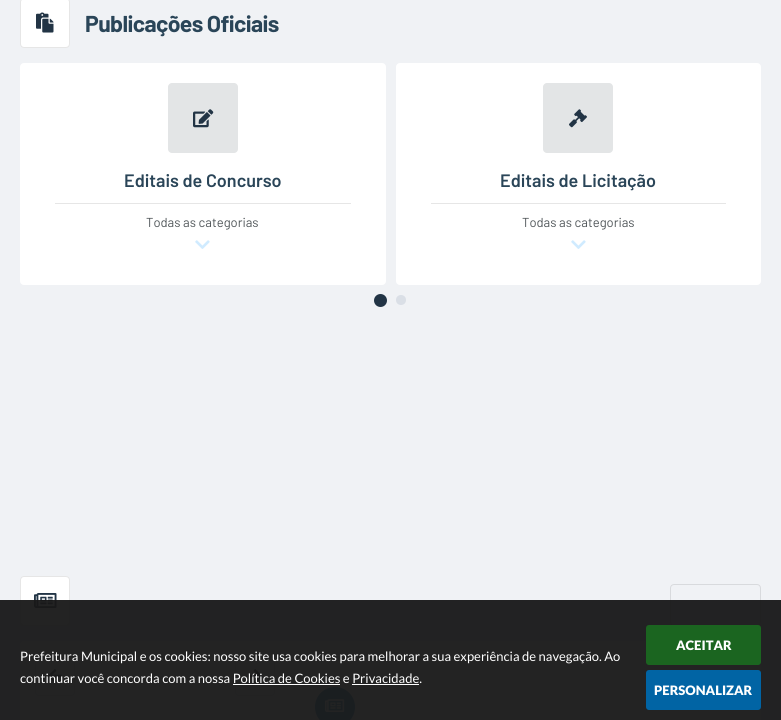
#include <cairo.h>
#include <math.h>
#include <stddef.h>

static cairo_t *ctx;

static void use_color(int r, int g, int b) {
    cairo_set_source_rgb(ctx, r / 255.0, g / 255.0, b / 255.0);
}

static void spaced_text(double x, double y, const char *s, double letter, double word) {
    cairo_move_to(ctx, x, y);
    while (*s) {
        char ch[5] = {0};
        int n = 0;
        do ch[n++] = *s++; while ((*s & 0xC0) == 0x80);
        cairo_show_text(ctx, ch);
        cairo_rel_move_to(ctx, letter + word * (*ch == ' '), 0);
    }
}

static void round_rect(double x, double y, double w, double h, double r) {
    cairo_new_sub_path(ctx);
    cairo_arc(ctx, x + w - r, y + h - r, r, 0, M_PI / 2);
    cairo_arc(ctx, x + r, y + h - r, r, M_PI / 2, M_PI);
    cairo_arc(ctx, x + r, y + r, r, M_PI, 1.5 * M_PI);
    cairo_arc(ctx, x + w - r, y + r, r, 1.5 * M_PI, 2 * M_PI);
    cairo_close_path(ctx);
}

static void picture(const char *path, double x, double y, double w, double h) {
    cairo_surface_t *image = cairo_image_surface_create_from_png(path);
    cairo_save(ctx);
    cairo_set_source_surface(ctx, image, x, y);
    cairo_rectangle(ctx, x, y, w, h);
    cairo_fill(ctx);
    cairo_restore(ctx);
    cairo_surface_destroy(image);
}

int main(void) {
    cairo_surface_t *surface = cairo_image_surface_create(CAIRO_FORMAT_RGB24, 781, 720);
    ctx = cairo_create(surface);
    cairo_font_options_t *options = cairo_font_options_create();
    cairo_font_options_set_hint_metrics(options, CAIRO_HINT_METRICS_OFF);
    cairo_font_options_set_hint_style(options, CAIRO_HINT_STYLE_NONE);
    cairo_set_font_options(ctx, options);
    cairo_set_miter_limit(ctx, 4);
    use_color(240, 242, 245);
    cairo_paint(ctx);
    use_color(255, 255, 255);
    round_rect(20, -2, 50, 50, 4);
    cairo_fill(ctx);
    round_rect(20.5, -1.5, 49, 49, 3.5);
    cairo_set_source_rgba(ctx, 0, 0, 0, 0.1);
    cairo_set_line_width(ctx, 1);
    cairo_stroke(ctx);
    picture("img1.png", 36, 12, 18, 21);
    cairo_select_font_face(ctx, "Barlow", CAIRO_FONT_SLANT_NORMAL, CAIRO_FONT_WEIGHT_BOLD);
    cairo_set_font_size(ctx, 23);
    use_color(42, 69, 88);
    spaced_text(85, 32, "Publicações Oficiais", -0.6, 0);
    use_color(255, 255, 255);
    round_rect(20, 63, 366, 222, 4);
    cairo_fill(ctx);
    use_color(227, 229, 230);
    round_rect(168, 83, 70, 70, 4);
    cairo_fill(ctx);
    picture("img2.png", 193, 109, 21, 19);
    use_color(230, 230, 230);
    cairo_rectangle(ctx, 55, 203, 296, 1);
    cairo_fill(ctx);
    cairo_select_font_face(ctx, "Barlow SemiBold", CAIRO_FONT_SLANT_NORMAL, CAIRO_FONT_WEIGHT_NORMAL);
    cairo_set_font_size(ctx, 18);
    use_color(42, 69, 88);
    cairo_move_to(ctx, 124, 187);
    cairo_show_text(ctx, "Editais de Concurso");
    cairo_select_font_face(ctx, "Barlow", CAIRO_FONT_SLANT_NORMAL, CAIRO_FONT_WEIGHT_NORMAL);
    cairo_set_font_size(ctx, 13);
    use_color(80, 86, 89);
    cairo_move_to(ctx, 146, 227);
    cairo_show_text(ctx, "Todas as categorias");
    picture("img3.png", 195, 240, 15, 9);
    use_color(255, 255, 255);
    round_rect(396, 63, 365, 222, 4);
    cairo_fill(ctx);
    use_color(227, 229, 230);
    round_rect(543, 83, 70, 70, 4);
    cairo_fill(ctx);
    picture("img4.png", 569, 109, 18, 19);
    use_color(230, 230, 230);
    cairo_rectangle(ctx, 431, 203, 295, 1);
    cairo_fill(ctx);
    cairo_select_font_face(ctx, "Barlow SemiBold", CAIRO_FONT_SLANT_NORMAL, CAIRO_FONT_WEIGHT_NORMAL);
    cairo_set_font_size(ctx, 18);
    use_color(42, 69, 88);
    cairo_move_to(ctx, 500, 187);
    cairo_show_text(ctx, "Editais de Licitação");
    cairo_select_font_face(ctx, "Barlow", CAIRO_FONT_SLANT_NORMAL, CAIRO_FONT_WEIGHT_NORMAL);
    cairo_set_font_size(ctx, 13);
    use_color(80, 86, 89);
    cairo_move_to(ctx, 522, 227);
    cairo_show_text(ctx, "Todas as categorias");
    picture("img3.png", 571, 240, 15, 9);
    use_color(34, 52, 69);
    cairo_arc(ctx, 380.5, 300.5, 6.5, 0, 2 * M_PI);
    cairo_fill(ctx);
    use_color(218, 223, 230);
    cairo_arc(ctx, 401, 300, 5, 0, 2 * M_PI);
    cairo_fill(ctx);
    use_color(255, 255, 255);
    round_rect(20, 576, 50, 50, 4);
    cairo_fill(ctx);
    round_rect(20.5, 576.5, 49, 49, 3.5);
    cairo_set_source_rgba(ctx, 0, 0, 0, 0.1);
    cairo_stroke(ctx);
    picture("img5.png", 34, 593, 23, 15);
    round_rect(670.5, 584.5, 90, 41, 3.5);
    use_color(216, 218, 221);
    cairo_stroke(ctx);
    use_color(255, 255, 255);
    round_rect(20, 641, 741, 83, 4);
    cairo_fill(ctx);
    round_rect(35.5, 656.5, 39, 39, 3.5);
    use_color(231, 235, 240);
    cairo_stroke(ctx);
    picture("img6.png", 48, 669, 14, 14);
    round_rect(235.5, 656.5, 39, 39, 3.5);
    cairo_stroke(ctx);
    picture("img7.png", 248, 669, 14, 14);
    use_color(57, 146, 201);
    cairo_arc(ctx, 335, 707, 20, 0, 2 * M_PI);
    cairo_fill(ctx);
    picture("img8.png", 325, 699, 20, 13);
    cairo_set_source_rgba(ctx, 0.098, 0.098, 0.098, 0.95);
    cairo_rectangle(ctx, 0, 600, 781, 120);
    cairo_fill(ctx);
    cairo_select_font_face(ctx, "Lato", CAIRO_FONT_SLANT_NORMAL, CAIRO_FONT_WEIGHT_NORMAL);
    use_color(255, 255, 255);
    cairo_move_to(ctx, 20, 661);
    cairo_show_text(ctx, "Prefeitura Municipal e os cookies: nosso site usa cookies para melhorar a sua experiência de navegação. Ao");
    cairo_move_to(ctx, 20, 683);
    cairo_show_text(ctx, "continuar você concorda com a nossa Política de Cookies e Privacidade.");
    cairo_rectangle(ctx, 233, 684, 107, 1);
    cairo_fill(ctx);
    cairo_rectangle(ctx, 352, 684, 67, 1);
    cairo_fill(ctx);
    use_color(27, 101, 32);
    round_rect(646, 625, 115, 40, 3);
    cairo_fill(ctx);
    cairo_select_font_face(ctx, "Lato Black", CAIRO_FONT_SLANT_NORMAL, CAIRO_FONT_WEIGHT_NORMAL);
    use_color(255, 255, 255);
    cairo_move_to(ctx, 676, 650);
    cairo_show_text(ctx, "ACEITAR");
    use_color(1, 100, 164);
    round_rect(646, 670, 115, 40, 3);
    cairo_fill(ctx);
    use_color(255, 255, 255);
    cairo_move_to(ctx, 654, 695);
    cairo_show_text(ctx, "PERSONALIZAR");
    cairo_surface_write_to_png(surface, "result.png");
    cairo_font_options_destroy(options);
    cairo_destroy(ctx);
    cairo_surface_destroy(surface);
    return 0;
}
